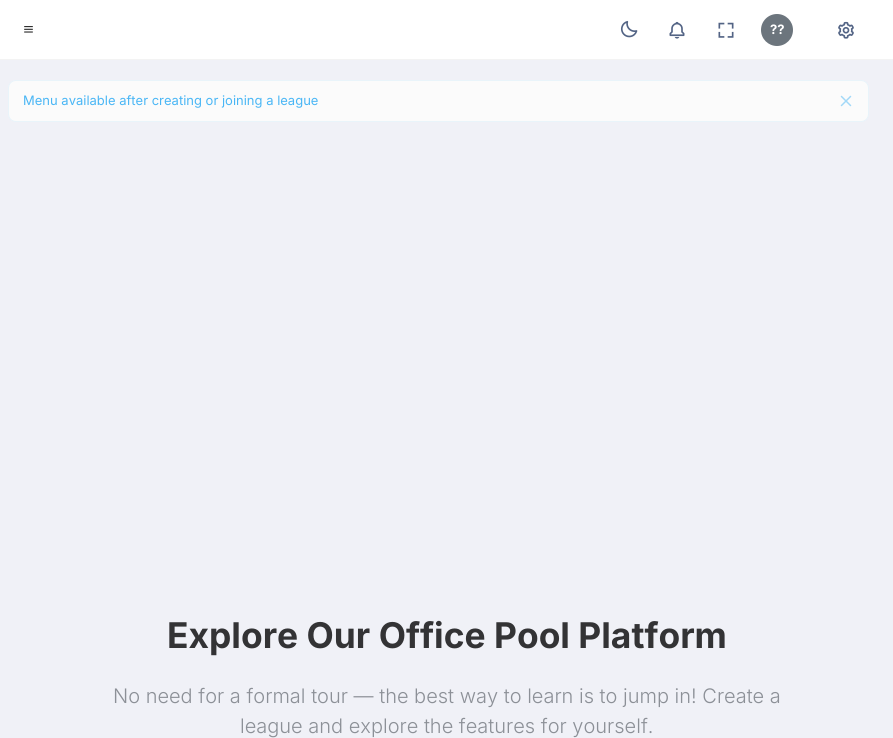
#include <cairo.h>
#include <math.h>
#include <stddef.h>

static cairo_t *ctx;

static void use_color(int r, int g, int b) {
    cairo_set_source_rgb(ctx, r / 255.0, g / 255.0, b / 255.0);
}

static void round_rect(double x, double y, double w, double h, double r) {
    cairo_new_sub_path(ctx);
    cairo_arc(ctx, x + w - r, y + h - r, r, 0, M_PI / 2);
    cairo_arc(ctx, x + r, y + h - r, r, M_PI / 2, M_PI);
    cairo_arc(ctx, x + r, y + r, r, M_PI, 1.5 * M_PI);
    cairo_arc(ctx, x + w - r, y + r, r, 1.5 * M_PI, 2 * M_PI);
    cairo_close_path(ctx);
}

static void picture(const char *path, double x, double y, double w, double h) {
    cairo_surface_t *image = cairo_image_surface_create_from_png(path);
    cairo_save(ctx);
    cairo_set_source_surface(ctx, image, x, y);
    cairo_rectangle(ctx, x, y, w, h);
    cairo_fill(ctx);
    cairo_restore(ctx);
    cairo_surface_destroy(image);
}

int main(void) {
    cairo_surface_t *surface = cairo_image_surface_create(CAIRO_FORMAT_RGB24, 893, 738);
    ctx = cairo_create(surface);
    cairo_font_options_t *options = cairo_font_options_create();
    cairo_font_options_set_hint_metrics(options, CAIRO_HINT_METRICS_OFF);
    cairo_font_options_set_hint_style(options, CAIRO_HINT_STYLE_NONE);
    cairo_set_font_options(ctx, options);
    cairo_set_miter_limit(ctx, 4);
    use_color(240, 241, 247);
    cairo_paint(ctx);
    use_color(255, 255, 255);
    cairo_rectangle(ctx, 0, 0, 893, 59);
    cairo_fill(ctx);
    use_color(243, 243, 243);
    cairo_rectangle(ctx, 0, 59, 893, 1);
    cairo_fill(ctx);
    picture("img1.png", 24, 26, 9, 7);
    picture("img2.png", 620, 20, 18, 18);
    picture("img3.png", 669, 21, 16, 18);
    picture("img4.png", 718, 22, 16, 16);
    use_color(108, 117, 125);
    cairo_arc(ctx, 777, 30, 16, 0, 2 * M_PI);
    cairo_fill(ctx);
    cairo_select_font_face(ctx, "Inter", CAIRO_FONT_SLANT_NORMAL, CAIRO_FONT_WEIGHT_BOLD);
    cairo_set_font_size(ctx, 13);
    use_color(255, 255, 255);
    cairo_move_to(ctx, 770, 34);
    cairo_show_text(ctx, "?\077");
    picture("img5.png", 838, 21, 16, 18);
    use_color(251, 251, 251);
    round_rect(8, 80, 861, 42, 8);
    cairo_fill(ctx);
    round_rect(8.5, 80.5, 860, 41, 7.5);
    cairo_set_source_rgba(ctx, 0.286, 0.714, 0.961, 0.1);
    cairo_set_line_width(ctx, 1);
    cairo_stroke(ctx);
    cairo_select_font_face(ctx, "Inter", CAIRO_FONT_SLANT_NORMAL, CAIRO_FONT_WEIGHT_NORMAL);
    use_color(73, 182, 245);
    cairo_move_to(ctx, 23, 105);
    cairo_show_text(ctx, "Menu available after creating or joining a league");
    picture("img6.png", 840, 95, 12, 12);
    cairo_select_font_face(ctx, "Inter", CAIRO_FONT_SLANT_NORMAL, CAIRO_FONT_WEIGHT_BOLD);
    cairo_set_font_size(ctx, 35.4);
    use_color(51, 51, 53);
    cairo_move_to(ctx, 167, 648);
    cairo_show_text(ctx, "Explore Our Office Pool Platform");
    cairo_select_font_face(ctx, "Inter Light", CAIRO_FONT_SLANT_NORMAL, CAIRO_FONT_WEIGHT_NORMAL);
    cairo_set_font_size(ctx, 20);
    use_color(140, 144, 151);
    cairo_move_to(ctx, 113, 703);
    cairo_show_text(ctx, "No need for a formal tour — the best way to learn is to jump in! Create a");
    cairo_move_to(ctx, 240, 733);
    cairo_show_text(ctx, "league and explore the features for yourself.");
    cairo_surface_write_to_png(surface, "result.png");
    cairo_font_options_destroy(options);
    cairo_destroy(ctx);
    cairo_surface_destroy(surface);
    return 0;
}
